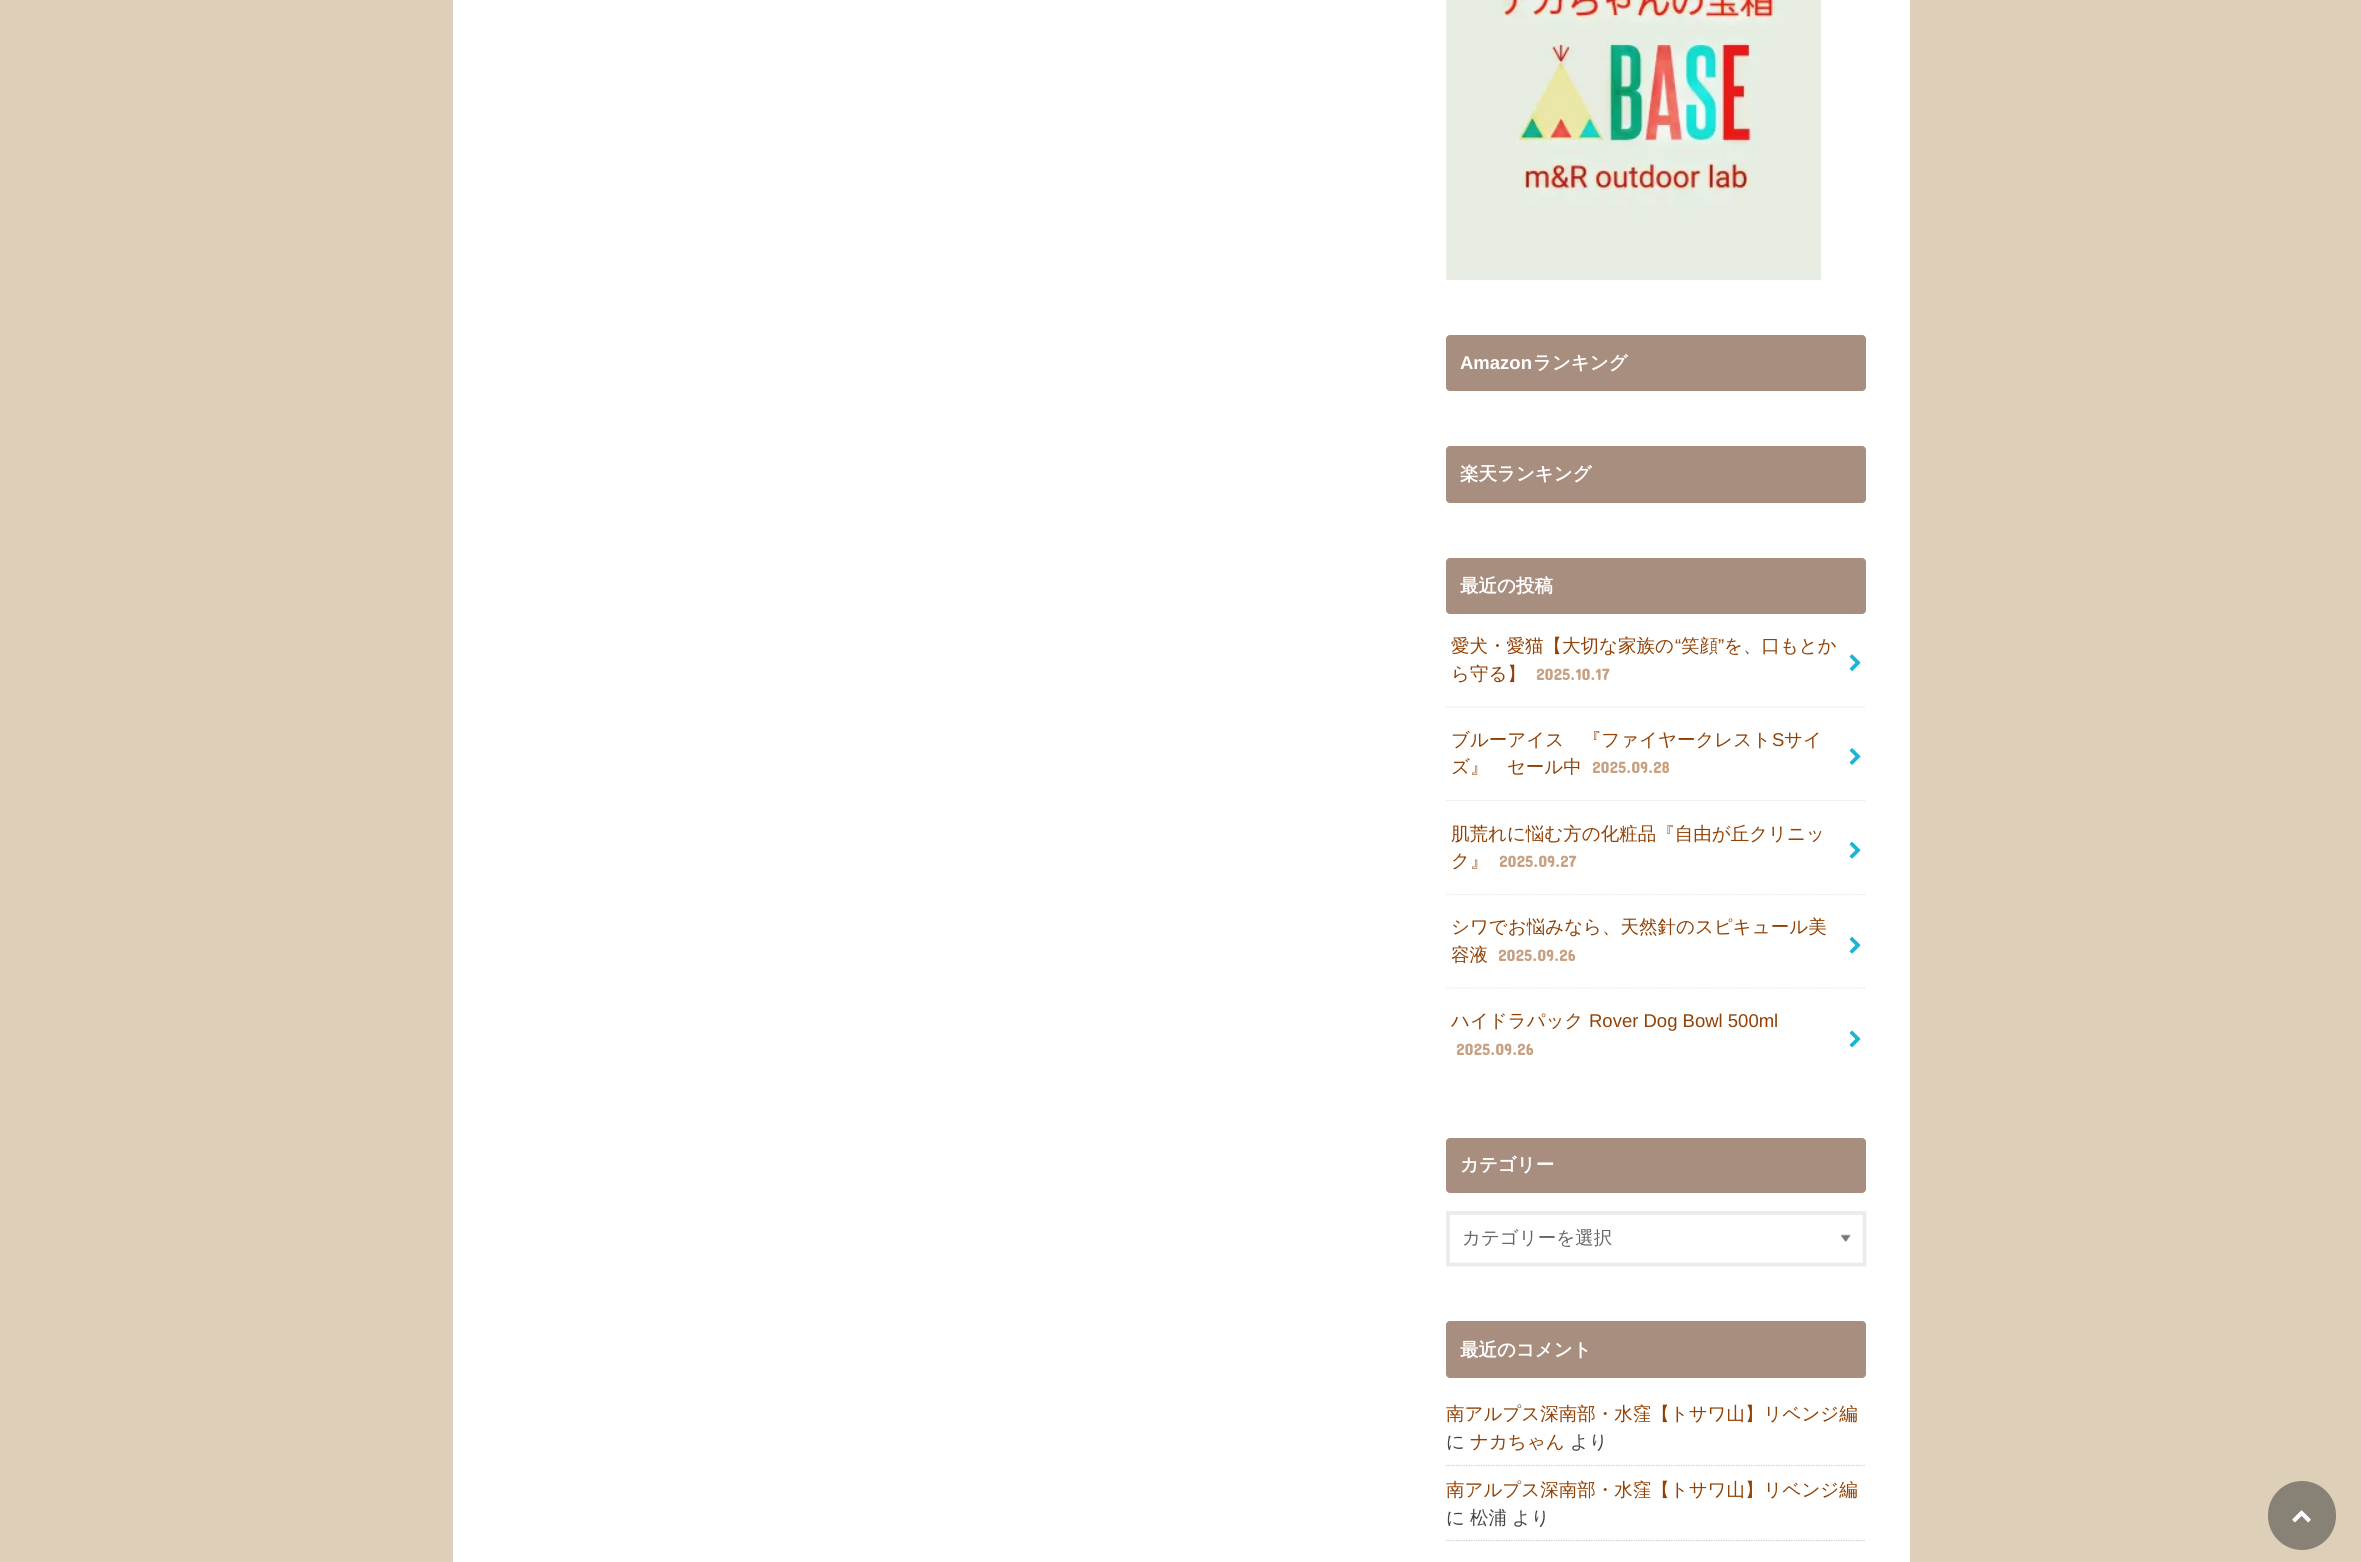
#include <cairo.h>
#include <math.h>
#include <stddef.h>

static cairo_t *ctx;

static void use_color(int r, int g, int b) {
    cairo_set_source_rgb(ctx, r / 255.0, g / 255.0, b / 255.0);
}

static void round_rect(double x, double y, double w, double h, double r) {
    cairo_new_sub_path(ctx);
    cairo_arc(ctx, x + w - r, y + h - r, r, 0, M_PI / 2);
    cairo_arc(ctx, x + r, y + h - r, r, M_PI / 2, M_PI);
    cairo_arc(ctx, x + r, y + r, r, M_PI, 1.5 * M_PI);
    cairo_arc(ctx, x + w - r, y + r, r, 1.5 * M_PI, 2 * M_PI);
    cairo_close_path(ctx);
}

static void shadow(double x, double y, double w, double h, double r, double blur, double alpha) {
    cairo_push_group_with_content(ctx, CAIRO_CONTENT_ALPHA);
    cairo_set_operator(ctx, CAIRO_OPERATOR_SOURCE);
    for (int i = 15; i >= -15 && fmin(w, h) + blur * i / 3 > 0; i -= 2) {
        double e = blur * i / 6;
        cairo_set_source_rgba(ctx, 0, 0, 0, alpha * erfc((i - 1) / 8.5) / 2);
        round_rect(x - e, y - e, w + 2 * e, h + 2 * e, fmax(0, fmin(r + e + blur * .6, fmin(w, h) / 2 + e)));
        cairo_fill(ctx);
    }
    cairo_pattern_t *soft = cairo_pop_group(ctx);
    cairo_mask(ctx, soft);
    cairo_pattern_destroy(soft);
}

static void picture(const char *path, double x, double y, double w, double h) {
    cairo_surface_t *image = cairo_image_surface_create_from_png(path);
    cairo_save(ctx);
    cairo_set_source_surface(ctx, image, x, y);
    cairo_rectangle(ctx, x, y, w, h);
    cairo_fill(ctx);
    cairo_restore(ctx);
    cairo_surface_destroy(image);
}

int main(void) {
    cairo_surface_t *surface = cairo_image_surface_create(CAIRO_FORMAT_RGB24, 2361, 1562);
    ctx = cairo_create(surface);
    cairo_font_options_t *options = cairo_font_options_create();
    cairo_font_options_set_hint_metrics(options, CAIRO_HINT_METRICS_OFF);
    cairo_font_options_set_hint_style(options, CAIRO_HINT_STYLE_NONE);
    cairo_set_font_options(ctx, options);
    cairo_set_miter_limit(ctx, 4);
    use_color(221, 207, 184);
    cairo_paint(ctx);
    use_color(221, 221, 221);
    shadow(453, -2, 1457, 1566, 0, 0.5, 1);
    use_color(255, 255, 255);
    cairo_rectangle(ctx, 453, 0, 1457, 1562);
    cairo_fill(ctx);
    picture("img1.png", 1446, 0, 375, 280);
    use_color(168, 142, 127);
    round_rect(1446, 335, 420, 56, 4);
    cairo_fill(ctx);
    cairo_select_font_face(ctx, "Liberation Sans", CAIRO_FONT_SLANT_NORMAL, CAIRO_FONT_WEIGHT_BOLD);
    cairo_set_font_size(ctx, 18.5);
    use_color(255, 255, 255);
    cairo_move_to(ctx, 1460, 369);
    cairo_show_text(ctx, "Amazon");
    cairo_select_font_face(ctx, "WenQuanYi Zen Hei", CAIRO_FONT_SLANT_NORMAL, CAIRO_FONT_WEIGHT_BOLD);
    cairo_move_to(ctx, 1533, 369);
    cairo_show_text(ctx, "ランキング");
    use_color(168, 142, 127);
    round_rect(1446, 446, 420, 57, 4);
    cairo_fill(ctx);
    use_color(255, 255, 255);
    cairo_move_to(ctx, 1460, 480);
    cairo_show_text(ctx, "楽天ランキング");
    use_color(168, 142, 127);
    round_rect(1446, 558, 420, 56, 4);
    cairo_fill(ctx);
    use_color(255, 255, 255);
    cairo_move_to(ctx, 1460, 592);
    cairo_show_text(ctx, "最近の投稿");
    cairo_new_path(ctx);
    cairo_move_to(ctx, 1446, 707);
    cairo_line_to(ctx, 1866, 707);
    use_color(229, 229, 229);
    cairo_set_line_width(ctx, 1.2);
    cairo_set_dash(ctx, (double[]){1.25, 1.25}, 2, 0);
    cairo_stroke(ctx);
    cairo_select_font_face(ctx, "WenQuanYi Zen Hei Medium", CAIRO_FONT_SLANT_NORMAL, CAIRO_FONT_WEIGHT_NORMAL);
    use_color(145, 65, 4);
    cairo_move_to(ctx, 1451, 652);
    cairo_show_text(ctx, "愛犬・愛猫【大切な家族の");
    cairo_select_font_face(ctx, "Liberation Sans", CAIRO_FONT_SLANT_NORMAL, CAIRO_FONT_WEIGHT_NORMAL);
    cairo_move_to(ctx, 1675, 652);
    cairo_show_text(ctx, "“");
    cairo_select_font_face(ctx, "WenQuanYi Zen Hei Medium", CAIRO_FONT_SLANT_NORMAL, CAIRO_FONT_WEIGHT_NORMAL);
    cairo_move_to(ctx, 1681, 652);
    cairo_show_text(ctx, "笑顔");
    cairo_select_font_face(ctx, "Liberation Sans", CAIRO_FONT_SLANT_NORMAL, CAIRO_FONT_WEIGHT_NORMAL);
    cairo_move_to(ctx, 1718, 652);
    cairo_show_text(ctx, "”");
    cairo_select_font_face(ctx, "WenQuanYi Zen Hei Medium", CAIRO_FONT_SLANT_NORMAL, CAIRO_FONT_WEIGHT_NORMAL);
    cairo_move_to(ctx, 1724, 652);
    cairo_show_text(ctx, "を、口もとか");
    cairo_move_to(ctx, 1451, 680);
    cairo_show_text(ctx, "ら守る】");
    cairo_select_font_face(ctx, "Concert One", CAIRO_FONT_SLANT_NORMAL, CAIRO_FONT_WEIGHT_NORMAL);
    cairo_set_font_size(ctx, 16.5);
    use_color(200, 160, 130);
    cairo_move_to(ctx, 1536, 680);
    cairo_show_text(ctx, "2025.10.17");
    picture("img2.png", 1849, 654, 12, 17);
    cairo_new_path(ctx);
    cairo_move_to(ctx, 1446, 800.5);
    cairo_line_to(ctx, 1866, 800.5);
    use_color(229, 229, 229);
    cairo_stroke(ctx);
    cairo_select_font_face(ctx, "WenQuanYi Zen Hei Medium", CAIRO_FONT_SLANT_NORMAL, CAIRO_FONT_WEIGHT_NORMAL);
    cairo_set_font_size(ctx, 18.5);
    use_color(145, 65, 4);
    cairo_move_to(ctx, 1451, 746);
    cairo_show_text(ctx, "ブルーアイス　『ファイヤークレスト");
    cairo_select_font_face(ctx, "Liberation Sans", CAIRO_FONT_SLANT_NORMAL, CAIRO_FONT_WEIGHT_NORMAL);
    cairo_move_to(ctx, 1772, 746);
    cairo_show_text(ctx, "S");
    cairo_select_font_face(ctx, "WenQuanYi Zen Hei Medium", CAIRO_FONT_SLANT_NORMAL, CAIRO_FONT_WEIGHT_NORMAL);
    cairo_move_to(ctx, 1784, 746);
    cairo_show_text(ctx, "サイ");
    cairo_move_to(ctx, 1451, 773);
    cairo_show_text(ctx, "ズ』　セール中");
    cairo_select_font_face(ctx, "Concert One", CAIRO_FONT_SLANT_NORMAL, CAIRO_FONT_WEIGHT_NORMAL);
    cairo_set_font_size(ctx, 16.5);
    use_color(200, 160, 130);
    cairo_move_to(ctx, 1592, 773);
    cairo_show_text(ctx, "2025.09.28");
    picture("img3.png", 1849, 748, 12, 17);
    cairo_new_path(ctx);
    cairo_move_to(ctx, 1446, 894.5);
    cairo_line_to(ctx, 1866, 894.5);
    use_color(229, 229, 229);
    cairo_stroke(ctx);
    cairo_select_font_face(ctx, "WenQuanYi Zen Hei Medium", CAIRO_FONT_SLANT_NORMAL, CAIRO_FONT_WEIGHT_NORMAL);
    cairo_set_font_size(ctx, 18.5);
    use_color(145, 65, 4);
    cairo_move_to(ctx, 1451, 840);
    cairo_show_text(ctx, "肌荒れに悩む方の化粧品『自由が丘クリニッ");
    picture("img4.png", 1849, 841, 12, 18);
    cairo_move_to(ctx, 1451, 867);
    cairo_show_text(ctx, "ク』");
    cairo_select_font_face(ctx, "Concert One", CAIRO_FONT_SLANT_NORMAL, CAIRO_FONT_WEIGHT_NORMAL);
    cairo_set_font_size(ctx, 16.5);
    use_color(200, 160, 130);
    cairo_move_to(ctx, 1499, 867);
    cairo_show_text(ctx, "2025.09.27");
    cairo_new_path(ctx);
    cairo_move_to(ctx, 1446, 988);
    cairo_line_to(ctx, 1866, 988);
    use_color(229, 229, 229);
    cairo_stroke(ctx);
    cairo_select_font_face(ctx, "WenQuanYi Zen Hei Medium", CAIRO_FONT_SLANT_NORMAL, CAIRO_FONT_WEIGHT_NORMAL);
    cairo_set_font_size(ctx, 18.5);
    use_color(145, 65, 4);
    cairo_move_to(ctx, 1451, 933);
    cairo_show_text(ctx, "シワでお悩みなら、天然針のスピキュール美");
    cairo_move_to(ctx, 1451, 961);
    cairo_show_text(ctx, "容液");
    cairo_select_font_face(ctx, "Concert One", CAIRO_FONT_SLANT_NORMAL, CAIRO_FONT_WEIGHT_NORMAL);
    cairo_set_font_size(ctx, 16.5);
    use_color(200, 160, 130);
    cairo_move_to(ctx, 1498, 961);
    cairo_show_text(ctx, "2025.09.26");
    picture("img4.png", 1849, 936, 12, 18);
    cairo_select_font_face(ctx, "WenQuanYi Zen Hei Medium", CAIRO_FONT_SLANT_NORMAL, CAIRO_FONT_WEIGHT_NORMAL);
    cairo_set_font_size(ctx, 18.5);
    use_color(145, 65, 4);
    cairo_move_to(ctx, 1451, 1027);
    cairo_show_text(ctx, "ハイドラパック");
    cairo_select_font_face(ctx, "Liberation Sans", CAIRO_FONT_SLANT_NORMAL, CAIRO_FONT_WEIGHT_NORMAL);
    cairo_move_to(ctx, 1589, 1027);
    cairo_show_text(ctx, "Rover Dog Bowl 500ml");
    picture("img5.png", 1849, 1030, 12, 18);
    cairo_select_font_face(ctx, "Concert One", CAIRO_FONT_SLANT_NORMAL, CAIRO_FONT_WEIGHT_NORMAL);
    cairo_set_font_size(ctx, 16.5);
    use_color(200, 160, 130);
    cairo_move_to(ctx, 1456, 1055);
    cairo_show_text(ctx, "2025.09.26");
    use_color(168, 142, 127);
    round_rect(1446, 1138, 420, 55, 4);
    cairo_fill(ctx);
    cairo_select_font_face(ctx, "WenQuanYi Zen Hei", CAIRO_FONT_SLANT_NORMAL, CAIRO_FONT_WEIGHT_BOLD);
    cairo_set_font_size(ctx, 18.5);
    use_color(255, 255, 255);
    cairo_move_to(ctx, 1460, 1171);
    cairo_show_text(ctx, "カテゴリー");
    picture("img6.png", 1841, 1234, 10, 8);
    cairo_new_path(ctx);
    cairo_move_to(ctx, 1448, 1213);
    cairo_line_to(ctx, 1864.5, 1213);
    cairo_line_to(ctx, 1864.5, 1264.5);
    cairo_line_to(ctx, 1448, 1264.5);
    cairo_close_path(ctx);
    use_color(235, 235, 235);
    cairo_set_line_width(ctx, 3.8);
    cairo_set_dash(ctx, NULL, 0, 0);
    cairo_stroke(ctx);
    cairo_select_font_face(ctx, "WenQuanYi Zen Hei Medium", CAIRO_FONT_SLANT_NORMAL, CAIRO_FONT_WEIGHT_NORMAL);
    use_color(102, 102, 102);
    cairo_move_to(ctx, 1462, 1244);
    cairo_show_text(ctx, "カテゴリーを選択");
    use_color(168, 142, 127);
    round_rect(1446, 1321, 420, 57, 4);
    cairo_fill(ctx);
    cairo_select_font_face(ctx, "WenQuanYi Zen Hei", CAIRO_FONT_SLANT_NORMAL, CAIRO_FONT_WEIGHT_BOLD);
    use_color(255, 255, 255);
    cairo_move_to(ctx, 1460, 1356);
    cairo_show_text(ctx, "最近のコメント");
    cairo_new_path(ctx);
    cairo_move_to(ctx, 1446, 1465.5);
    cairo_line_to(ctx, 1866, 1465.5);
    use_color(204, 204, 204);
    cairo_set_line_width(ctx, 1.2);
    cairo_set_dash(ctx, (double[]){1.25, 1.25}, 2, 0);
    cairo_stroke(ctx);
    cairo_select_font_face(ctx, "WenQuanYi Zen Hei Medium", CAIRO_FONT_SLANT_NORMAL, CAIRO_FONT_WEIGHT_NORMAL);
    use_color(145, 65, 4);
    cairo_move_to(ctx, 1446, 1420);
    cairo_show_text(ctx, "南アルプス深南部・水窪【トサワ山】リベンジ編");
    use_color(68, 68, 68);
    cairo_move_to(ctx, 1446, 1448);
    cairo_show_text(ctx, "に");
    use_color(145, 65, 4);
    cairo_move_to(ctx, 1470, 1448);
    cairo_show_text(ctx, "ナカちゃん");
    use_color(68, 68, 68);
    cairo_move_to(ctx, 1570, 1448);
    cairo_show_text(ctx, "より");
    cairo_new_path(ctx);
    cairo_move_to(ctx, 1446, 1540.5);
    cairo_line_to(ctx, 1866, 1540.5);
    use_color(204, 204, 204);
    cairo_stroke(ctx);
    use_color(145, 65, 4);
    cairo_move_to(ctx, 1446, 1496);
    cairo_show_text(ctx, "南アルプス深南部・水窪【トサワ山】リベンジ編");
    use_color(68, 68, 68);
    cairo_move_to(ctx, 1446, 1524);
    cairo_show_text(ctx, "に");
    cairo_move_to(ctx, 1470, 1524);
    cairo_show_text(ctx, "松浦");
    cairo_move_to(ctx, 1512, 1524);
    cairo_show_text(ctx, "より");
    use_color(136, 129, 118);
    round_rect(2268, 1481, 68, 69, 34);
    cairo_fill(ctx);
    picture("img7.png", 2292, 1510, 19, 13);
    cairo_surface_write_to_png(surface, "result.png");
    cairo_font_options_destroy(options);
    cairo_destroy(ctx);
    cairo_surface_destroy(surface);
    return 0;
}
